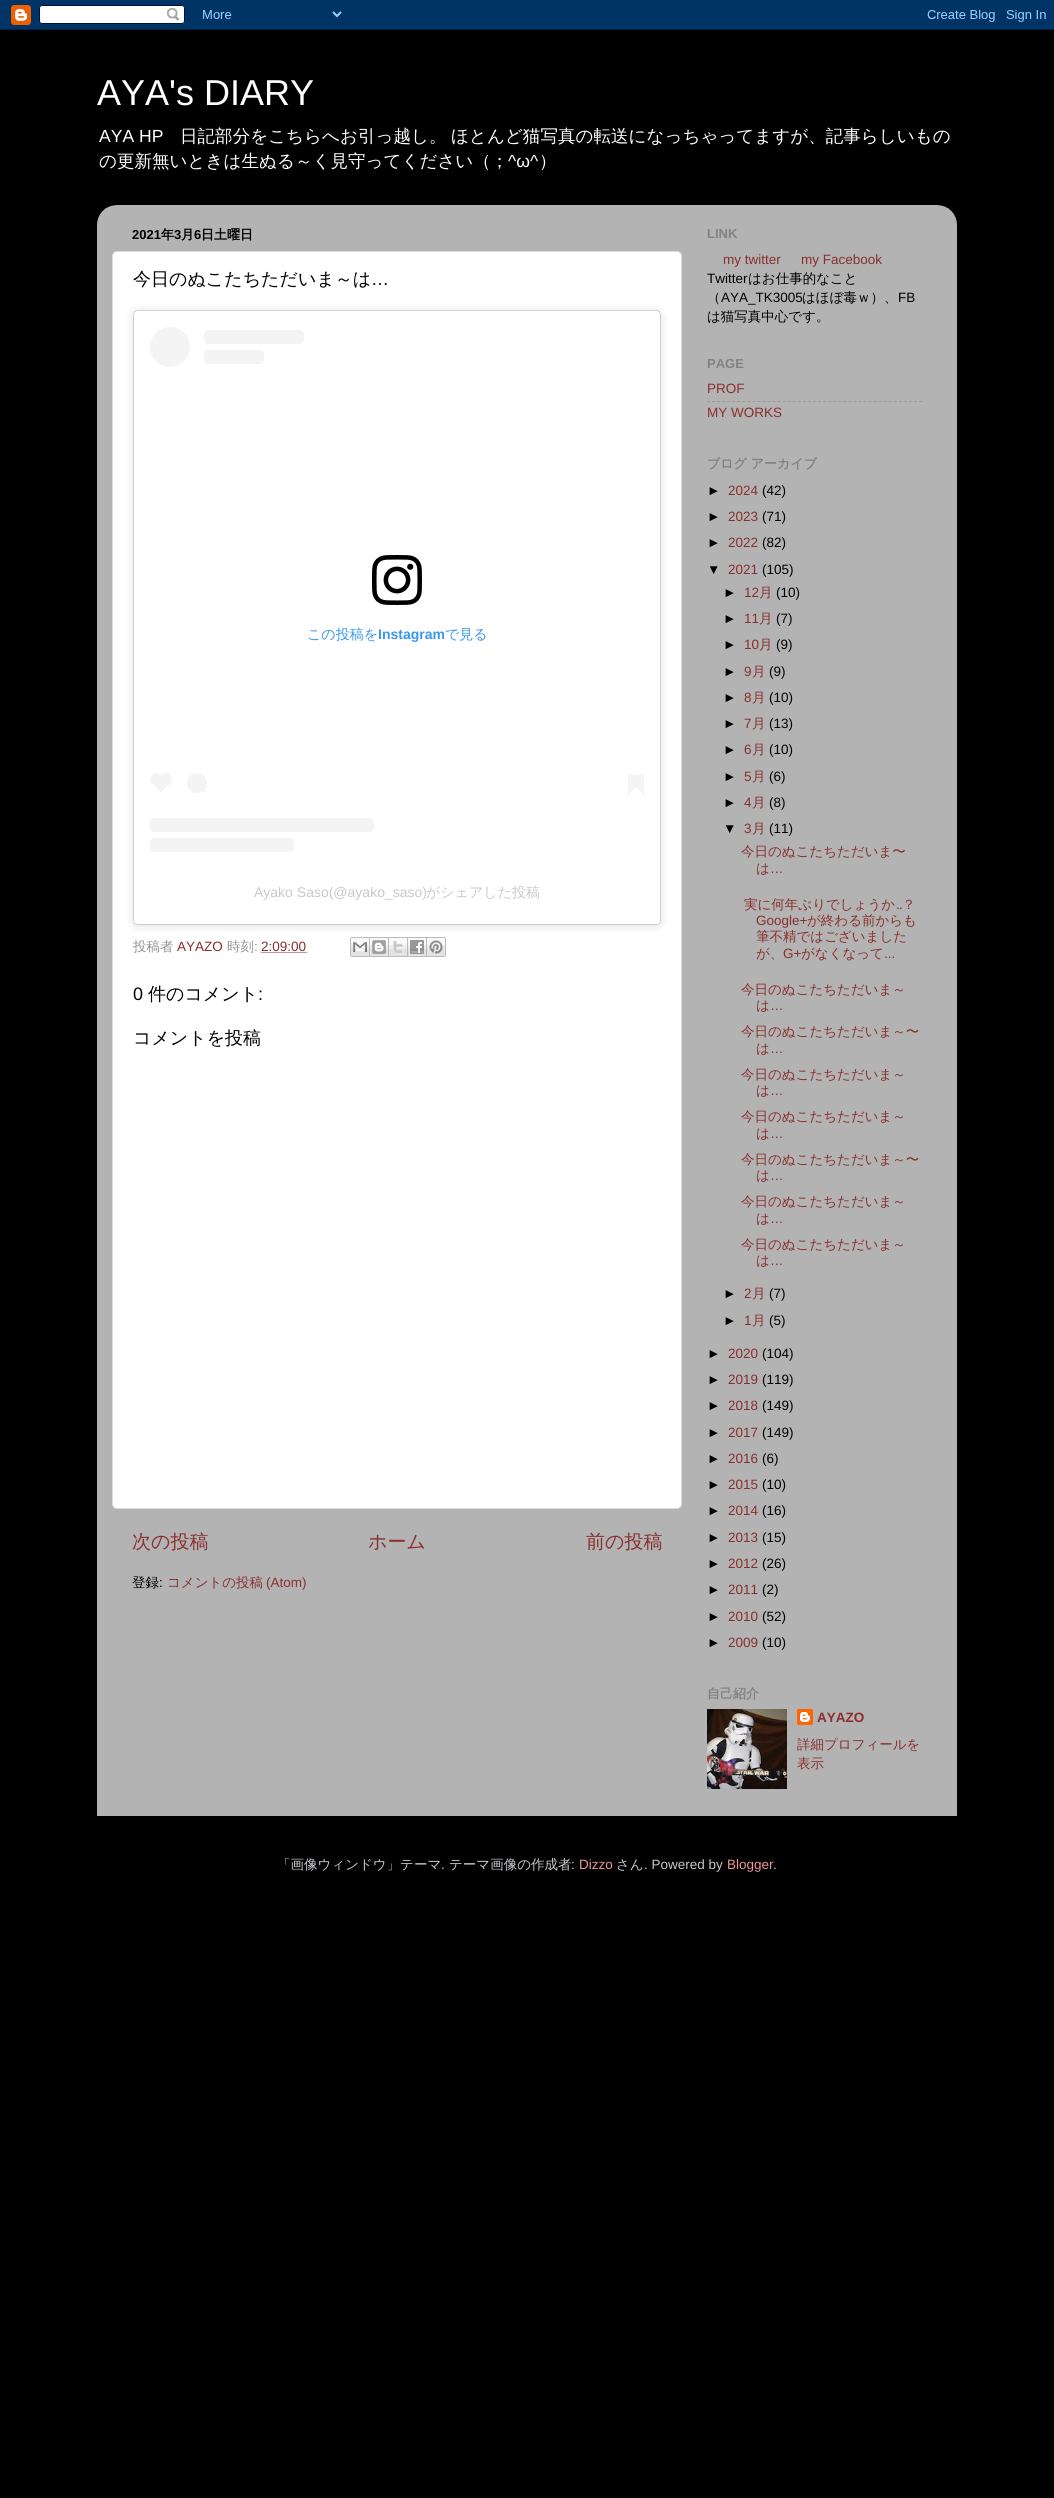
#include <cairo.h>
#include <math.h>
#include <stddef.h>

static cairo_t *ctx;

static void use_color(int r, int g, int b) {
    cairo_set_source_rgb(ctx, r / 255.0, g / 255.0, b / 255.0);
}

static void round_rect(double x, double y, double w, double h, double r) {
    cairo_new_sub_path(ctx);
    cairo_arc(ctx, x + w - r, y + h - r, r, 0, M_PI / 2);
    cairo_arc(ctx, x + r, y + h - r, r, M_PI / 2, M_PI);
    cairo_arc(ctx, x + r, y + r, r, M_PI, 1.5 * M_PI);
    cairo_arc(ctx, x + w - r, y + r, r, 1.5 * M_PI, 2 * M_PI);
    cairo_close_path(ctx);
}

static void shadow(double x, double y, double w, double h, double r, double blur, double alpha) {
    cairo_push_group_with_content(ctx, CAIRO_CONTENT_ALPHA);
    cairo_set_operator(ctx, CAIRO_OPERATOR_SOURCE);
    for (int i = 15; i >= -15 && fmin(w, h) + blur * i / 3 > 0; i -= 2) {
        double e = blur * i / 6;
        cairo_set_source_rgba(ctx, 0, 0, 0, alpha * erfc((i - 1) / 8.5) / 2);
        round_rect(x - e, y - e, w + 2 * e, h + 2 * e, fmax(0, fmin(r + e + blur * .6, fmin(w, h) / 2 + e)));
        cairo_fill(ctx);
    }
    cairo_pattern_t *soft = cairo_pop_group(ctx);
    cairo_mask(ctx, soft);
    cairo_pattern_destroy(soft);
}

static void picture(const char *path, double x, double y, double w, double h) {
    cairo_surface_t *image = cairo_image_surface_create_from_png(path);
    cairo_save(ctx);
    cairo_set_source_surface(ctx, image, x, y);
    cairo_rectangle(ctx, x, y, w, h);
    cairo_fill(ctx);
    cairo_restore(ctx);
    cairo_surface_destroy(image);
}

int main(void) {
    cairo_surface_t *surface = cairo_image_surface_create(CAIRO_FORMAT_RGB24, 1054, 2498);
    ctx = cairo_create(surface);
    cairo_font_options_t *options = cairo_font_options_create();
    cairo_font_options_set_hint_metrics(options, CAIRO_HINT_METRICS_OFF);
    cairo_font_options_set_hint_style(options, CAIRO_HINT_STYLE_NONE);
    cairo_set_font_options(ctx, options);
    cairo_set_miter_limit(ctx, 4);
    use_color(0, 0, 0);
    cairo_paint(ctx);
    picture("img1.png", 0, 0, 1054, 30);
    cairo_select_font_face(ctx, "Liberation Sans", CAIRO_FONT_SLANT_NORMAL, CAIRO_FONT_WEIGHT_NORMAL);
    cairo_set_font_size(ctx, 36);
    use_color(255, 255, 255);
    cairo_move_to(ctx, 97, 105);
    cairo_show_text(ctx, "AYA's DIARY");
    cairo_set_font_size(ctx, 17.55);
    cairo_move_to(ctx, 99, 142);
    cairo_show_text(ctx, "AYA HP");
    cairo_select_font_face(ctx, "WenQuanYi Zen Hei Medium", CAIRO_FONT_SLANT_NORMAL, CAIRO_FONT_WEIGHT_NORMAL);
    cairo_move_to(ctx, 180, 142);
    cairo_show_text(ctx, "日記部分をこちらへお引っ越し。");
    cairo_move_to(ctx, 451, 142);
    cairo_show_text(ctx, "ほとんど猫写真の転送になっちゃってますが、記事らしいもの");
    cairo_move_to(ctx, 99, 167);
    cairo_show_text(ctx, "の更新無いときは生ぬる～く見守ってください（；");
    cairo_select_font_face(ctx, "Liberation Sans", CAIRO_FONT_SLANT_NORMAL, CAIRO_FONT_WEIGHT_NORMAL);
    cairo_move_to(ctx, 508, 167);
    cairo_show_text(ctx, "^ω^");
    cairo_select_font_face(ctx, "WenQuanYi Zen Hei Medium", CAIRO_FONT_SLANT_NORMAL, CAIRO_FONT_WEIGHT_NORMAL);
    cairo_move_to(ctx, 539, 167);
    cairo_show_text(ctx, "）");
    picture("img2.png", 97, 205, 860, 1611);
    cairo_select_font_face(ctx, "Liberation Sans", CAIRO_FONT_SLANT_NORMAL, CAIRO_FONT_WEIGHT_BOLD);
    cairo_set_font_size(ctx, 13);
    use_color(0, 0, 0);
    cairo_move_to(ctx, 132, 239);
    cairo_show_text(ctx, "2021");
    cairo_select_font_face(ctx, "WenQuanYi Zen Hei", CAIRO_FONT_SLANT_NORMAL, CAIRO_FONT_WEIGHT_BOLD);
    cairo_move_to(ctx, 161, 239);
    cairo_show_text(ctx, "年");
    cairo_select_font_face(ctx, "Liberation Sans", CAIRO_FONT_SLANT_NORMAL, CAIRO_FONT_WEIGHT_BOLD);
    cairo_move_to(ctx, 174, 239);
    cairo_show_text(ctx, "3");
    cairo_select_font_face(ctx, "WenQuanYi Zen Hei", CAIRO_FONT_SLANT_NORMAL, CAIRO_FONT_WEIGHT_BOLD);
    cairo_move_to(ctx, 181, 239);
    cairo_show_text(ctx, "月");
    cairo_select_font_face(ctx, "Liberation Sans", CAIRO_FONT_SLANT_NORMAL, CAIRO_FONT_WEIGHT_BOLD);
    cairo_move_to(ctx, 194, 239);
    cairo_show_text(ctx, "6");
    cairo_select_font_face(ctx, "WenQuanYi Zen Hei", CAIRO_FONT_SLANT_NORMAL, CAIRO_FONT_WEIGHT_BOLD);
    cairo_move_to(ctx, 201, 239);
    cairo_show_text(ctx, "日土曜日");
    use_color(255, 255, 255);
    round_rect(112.5, 251.5, 569, 1257, 4.5);
    cairo_fill_preserve(ctx);
    use_color(219, 219, 219);
    cairo_set_line_width(ctx, 1);
    cairo_stroke(ctx);
    cairo_select_font_face(ctx, "WenQuanYi Zen Hei Medium", CAIRO_FONT_SLANT_NORMAL, CAIRO_FONT_WEIGHT_NORMAL);
    cairo_set_font_size(ctx, 18);
    use_color(0, 0, 0);
    cairo_move_to(ctx, 133, 285);
    cairo_show_text(ctx, "今日のぬこたちただいま～は");
    cairo_select_font_face(ctx, "Liberation Sans", CAIRO_FONT_SLANT_NORMAL, CAIRO_FONT_WEIGHT_NORMAL);
    cairo_move_to(ctx, 371, 285);
    cairo_show_text(ctx, "…");
    use_color(0, 0, 0);
    shadow(134, 312, 526, 613, 3, 5, 0.15);
    shadow(134, 311, 526, 613, 3, 0.5, 0.5);
    use_color(255, 255, 255);
    round_rect(134, 311, 526, 613, 3);
    cairo_fill(ctx);
    use_color(244, 244, 244);
    cairo_arc(ctx, 170, 347, 20, 0, 2 * M_PI);
    cairo_fill(ctx);
    round_rect(204, 330, 100, 14, 4);
    cairo_fill(ctx);
    round_rect(204, 350, 60, 14, 4);
    cairo_fill(ctx);
    picture("img3.png", 372, 555, 50, 50);
    cairo_select_font_face(ctx, "WenQuanYi Zen Hei Medium", CAIRO_FONT_SLANT_NORMAL, CAIRO_FONT_WEIGHT_NORMAL);
    cairo_set_font_size(ctx, 14);
    use_color(56, 151, 240);
    cairo_move_to(ctx, 307, 639);
    cairo_show_text(ctx, "この投稿を");
    cairo_select_font_face(ctx, "Liberation Sans", CAIRO_FONT_SLANT_NORMAL, CAIRO_FONT_WEIGHT_BOLD);
    cairo_move_to(ctx, 378, 639);
    cairo_show_text(ctx, "Instagram");
    cairo_select_font_face(ctx, "WenQuanYi Zen Hei Medium", CAIRO_FONT_SLANT_NORMAL, CAIRO_FONT_WEIGHT_NORMAL);
    cairo_move_to(ctx, 445, 639);
    cairo_show_text(ctx, "で見る");
    use_color(244, 244, 244);
    cairo_new_path(ctx);
    cairo_arc(ctx, 156.5, 779.5, 6.5, 0, 2 * M_PI);
    cairo_fill(ctx);
    cairo_new_path(ctx);
    cairo_move_to(ctx, 152, 783.5);
    cairo_line_to(ctx, 161, 775);
    cairo_line_to(ctx, 170, 783.5);
    cairo_line_to(ctx, 161, 792.5);
    cairo_close_path(ctx);
    cairo_fill(ctx);
    cairo_arc(ctx, 165.5, 779.5, 6.5, 0, 2 * M_PI);
    cairo_fill(ctx);
    cairo_arc(ctx, 197, 783, 10, 0, 2 * M_PI);
    cairo_fill(ctx);
    cairo_new_path(ctx);
    cairo_move_to(ctx, 202, 791.5);
    cairo_line_to(ctx, 204, 788);
    cairo_line_to(ctx, 208, 792.5);
    cairo_close_path(ctx);
    cairo_fill(ctx);
    cairo_rectangle(ctx, 628, 775, 16, 12);
    cairo_fill(ctx);
    cairo_new_path(ctx);
    cairo_move_to(ctx, 628, 787);
    cairo_line_to(ctx, 636, 787);
    cairo_line_to(ctx, 628, 795);
    cairo_close_path(ctx);
    cairo_fill(ctx);
    cairo_new_path(ctx);
    cairo_move_to(ctx, 636, 787);
    cairo_line_to(ctx, 644, 787);
    cairo_line_to(ctx, 644, 795);
    cairo_close_path(ctx);
    cairo_fill(ctx);
    round_rect(150, 818, 224, 14, 4);
    cairo_fill(ctx);
    round_rect(150, 838, 144, 14, 4);
    cairo_fill(ctx);
    cairo_select_font_face(ctx, "Liberation Sans", CAIRO_FONT_SLANT_NORMAL, CAIRO_FONT_WEIGHT_NORMAL);
    use_color(201, 200, 205);
    cairo_move_to(ctx, 254, 897);
    cairo_show_text(ctx, "Ayako Saso(@ayako_saso)");
    cairo_select_font_face(ctx, "WenQuanYi Zen Hei Medium", CAIRO_FONT_SLANT_NORMAL, CAIRO_FONT_WEIGHT_NORMAL);
    cairo_move_to(ctx, 426, 897);
    cairo_show_text(ctx, "がシェアした投稿");
    cairo_set_font_size(ctx, 13.5);
    use_color(148, 148, 148);
    cairo_move_to(ctx, 133, 951);
    cairo_show_text(ctx, "投稿者");
    cairo_select_font_face(ctx, "Liberation Sans", CAIRO_FONT_SLANT_NORMAL, CAIRO_FONT_WEIGHT_NORMAL);
    use_color(138, 46, 46);
    cairo_move_to(ctx, 177, 951);
    cairo_show_text(ctx, "AYAZO");
    cairo_select_font_face(ctx, "WenQuanYi Zen Hei Medium", CAIRO_FONT_SLANT_NORMAL, CAIRO_FONT_WEIGHT_NORMAL);
    use_color(148, 148, 148);
    cairo_move_to(ctx, 227, 951);
    cairo_show_text(ctx, "時刻");
    cairo_select_font_face(ctx, "Liberation Sans", CAIRO_FONT_SLANT_NORMAL, CAIRO_FONT_WEIGHT_NORMAL);
    cairo_move_to(ctx, 254, 951);
    cairo_show_text(ctx, ":");
    use_color(138, 46, 46);
    cairo_move_to(ctx, 261, 951);
    cairo_show_text(ctx, "2:09:00");
    cairo_new_path(ctx);
    cairo_move_to(ctx, 261.5, 952.5);
    cairo_line_to(ctx, 306.5, 952.5);
    cairo_set_dash(ctx, (double[]){1, 1}, 2, 0);
    cairo_stroke(ctx);
    picture("img4.png", 350, 937, 20, 20);
    picture("img5.png", 370, 937, 19, 20);
    picture("img6.png", 389, 937, 19, 20);
    picture("img7.png", 408, 937, 19, 20);
    picture("img8.png", 427, 937, 19, 20);
    cairo_set_font_size(ctx, 18);
    use_color(0, 0, 0);
    cairo_move_to(ctx, 133, 1000);
    cairo_show_text(ctx, "0");
    cairo_select_font_face(ctx, "WenQuanYi Zen Hei Medium", CAIRO_FONT_SLANT_NORMAL, CAIRO_FONT_WEIGHT_NORMAL);
    cairo_move_to(ctx, 148, 1000);
    cairo_show_text(ctx, "件のコメント");
    cairo_select_font_face(ctx, "Liberation Sans", CAIRO_FONT_SLANT_NORMAL, CAIRO_FONT_WEIGHT_NORMAL);
    cairo_move_to(ctx, 258, 1000);
    cairo_show_text(ctx, ":");
    cairo_select_font_face(ctx, "WenQuanYi Zen Hei Medium", CAIRO_FONT_SLANT_NORMAL, CAIRO_FONT_WEIGHT_NORMAL);
    cairo_move_to(ctx, 133, 1044);
    cairo_show_text(ctx, "コメントを投稿");
    cairo_set_font_size(ctx, 19);
    use_color(138, 46, 46);
    cairo_move_to(ctx, 132, 1548);
    cairo_show_text(ctx, "次の投稿");
    cairo_move_to(ctx, 368, 1548);
    cairo_show_text(ctx, "ホーム");
    cairo_move_to(ctx, 586, 1548);
    cairo_show_text(ctx, "前の投稿");
    cairo_set_font_size(ctx, 13.5);
    use_color(0, 0, 0);
    cairo_move_to(ctx, 132, 1587);
    cairo_show_text(ctx, "登録");
    cairo_select_font_face(ctx, "Liberation Sans", CAIRO_FONT_SLANT_NORMAL, CAIRO_FONT_WEIGHT_NORMAL);
    cairo_move_to(ctx, 159, 1587);
    cairo_show_text(ctx, ":");
    cairo_select_font_face(ctx, "WenQuanYi Zen Hei Medium", CAIRO_FONT_SLANT_NORMAL, CAIRO_FONT_WEIGHT_NORMAL);
    use_color(138, 46, 46);
    cairo_move_to(ctx, 167, 1587);
    cairo_show_text(ctx, "コメントの投稿");
    cairo_select_font_face(ctx, "Liberation Sans", CAIRO_FONT_SLANT_NORMAL, CAIRO_FONT_WEIGHT_NORMAL);
    cairo_move_to(ctx, 266, 1587);
    cairo_show_text(ctx, "(Atom)");
    cairo_select_font_face(ctx, "Liberation Sans", CAIRO_FONT_SLANT_NORMAL, CAIRO_FONT_WEIGHT_BOLD);
    cairo_set_font_size(ctx, 13);
    use_color(130, 130, 130);
    cairo_move_to(ctx, 707, 238);
    cairo_show_text(ctx, "LINK");
    cairo_select_font_face(ctx, "Liberation Sans", CAIRO_FONT_SLANT_NORMAL, CAIRO_FONT_WEIGHT_NORMAL);
    cairo_set_font_size(ctx, 13.5);
    use_color(138, 46, 46);
    cairo_move_to(ctx, 723, 264);
    cairo_show_text(ctx, "my twitter");
    cairo_move_to(ctx, 801, 264);
    cairo_show_text(ctx, "my Facebook");
    use_color(0, 0, 0);
    cairo_move_to(ctx, 707, 283);
    cairo_show_text(ctx, "Twitter");
    cairo_select_font_face(ctx, "WenQuanYi Zen Hei Medium", CAIRO_FONT_SLANT_NORMAL, CAIRO_FONT_WEIGHT_NORMAL);
    cairo_move_to(ctx, 748, 283);
    cairo_show_text(ctx, "はお仕事的なこと");
    cairo_move_to(ctx, 707, 302);
    cairo_show_text(ctx, "（");
    cairo_select_font_face(ctx, "Liberation Sans", CAIRO_FONT_SLANT_NORMAL, CAIRO_FONT_WEIGHT_NORMAL);
    cairo_move_to(ctx, 721, 302);
    cairo_show_text(ctx, "AYA_TK3005");
    cairo_select_font_face(ctx, "WenQuanYi Zen Hei Medium", CAIRO_FONT_SLANT_NORMAL, CAIRO_FONT_WEIGHT_NORMAL);
    cairo_move_to(ctx, 802, 302);
    cairo_show_text(ctx, "はほぼ毒ｗ）、");
    cairo_select_font_face(ctx, "Liberation Sans", CAIRO_FONT_SLANT_NORMAL, CAIRO_FONT_WEIGHT_NORMAL);
    cairo_move_to(ctx, 898, 302);
    cairo_show_text(ctx, "FB");
    cairo_select_font_face(ctx, "WenQuanYi Zen Hei Medium", CAIRO_FONT_SLANT_NORMAL, CAIRO_FONT_WEIGHT_NORMAL);
    cairo_move_to(ctx, 707, 321);
    cairo_show_text(ctx, "は猫写真中心です。");
    cairo_select_font_face(ctx, "Liberation Sans", CAIRO_FONT_SLANT_NORMAL, CAIRO_FONT_WEIGHT_BOLD);
    cairo_set_font_size(ctx, 13);
    use_color(130, 130, 130);
    cairo_move_to(ctx, 707, 368);
    cairo_show_text(ctx, "PAGE");
    cairo_select_font_face(ctx, "Liberation Sans", CAIRO_FONT_SLANT_NORMAL, CAIRO_FONT_WEIGHT_NORMAL);
    cairo_set_font_size(ctx, 13.5);
    use_color(138, 46, 46);
    cairo_move_to(ctx, 707, 393);
    cairo_show_text(ctx, "PROF");
    cairo_new_path(ctx);
    cairo_move_to(ctx, 707, 401.5);
    cairo_line_to(ctx, 922, 401.5);
    use_color(154, 154, 154);
    cairo_set_dash(ctx, (double[]){3, 2.05}, 2, 0);
    cairo_stroke(ctx);
    use_color(138, 46, 46);
    cairo_move_to(ctx, 707, 417);
    cairo_show_text(ctx, "MY WORKS");
    cairo_select_font_face(ctx, "WenQuanYi Zen Hei", CAIRO_FONT_SLANT_NORMAL, CAIRO_FONT_WEIGHT_BOLD);
    cairo_set_font_size(ctx, 13);
    use_color(130, 130, 130);
    cairo_move_to(ctx, 707, 468);
    cairo_show_text(ctx, "ブログ アーカイブ");
    cairo_select_font_face(ctx, "Liberation Sans", CAIRO_FONT_SLANT_NORMAL, CAIRO_FONT_WEIGHT_NORMAL);
    cairo_set_font_size(ctx, 13.5);
    use_color(0, 0, 0);
    cairo_move_to(ctx, 707, 495);
    cairo_show_text(ctx, "►");
    use_color(138, 46, 46);
    cairo_move_to(ctx, 728, 495);
    cairo_show_text(ctx, "2024");
    use_color(0, 0, 0);
    cairo_move_to(ctx, 762, 495);
    cairo_show_text(ctx, "(42)");
    cairo_move_to(ctx, 707, 521);
    cairo_show_text(ctx, "►");
    use_color(138, 46, 46);
    cairo_move_to(ctx, 728, 521);
    cairo_show_text(ctx, "2023");
    use_color(0, 0, 0);
    cairo_move_to(ctx, 762, 521);
    cairo_show_text(ctx, "(71)");
    cairo_move_to(ctx, 707, 547);
    cairo_show_text(ctx, "►");
    use_color(138, 46, 46);
    cairo_move_to(ctx, 728, 547);
    cairo_show_text(ctx, "2022");
    use_color(0, 0, 0);
    cairo_move_to(ctx, 762, 547);
    cairo_show_text(ctx, "(82)");
    cairo_move_to(ctx, 707, 574);
    cairo_show_text(ctx, "▼");
    use_color(138, 46, 46);
    cairo_move_to(ctx, 728, 574);
    cairo_show_text(ctx, "2021");
    use_color(0, 0, 0);
    cairo_move_to(ctx, 762, 574);
    cairo_show_text(ctx, "(105)");
    cairo_move_to(ctx, 723, 597);
    cairo_show_text(ctx, "►");
    use_color(138, 46, 46);
    cairo_move_to(ctx, 744, 597);
    cairo_show_text(ctx, "12");
    cairo_select_font_face(ctx, "WenQuanYi Zen Hei Medium", CAIRO_FONT_SLANT_NORMAL, CAIRO_FONT_WEIGHT_NORMAL);
    cairo_move_to(ctx, 759, 597);
    cairo_show_text(ctx, "月");
    cairo_select_font_face(ctx, "Liberation Sans", CAIRO_FONT_SLANT_NORMAL, CAIRO_FONT_WEIGHT_NORMAL);
    use_color(0, 0, 0);
    cairo_move_to(ctx, 776, 597);
    cairo_show_text(ctx, "(10)");
    cairo_move_to(ctx, 723, 623);
    cairo_show_text(ctx, "►");
    use_color(138, 46, 46);
    cairo_move_to(ctx, 744, 623);
    cairo_show_text(ctx, "11");
    cairo_select_font_face(ctx, "WenQuanYi Zen Hei Medium", CAIRO_FONT_SLANT_NORMAL, CAIRO_FONT_WEIGHT_NORMAL);
    cairo_move_to(ctx, 759, 623);
    cairo_show_text(ctx, "月");
    cairo_select_font_face(ctx, "Liberation Sans", CAIRO_FONT_SLANT_NORMAL, CAIRO_FONT_WEIGHT_NORMAL);
    use_color(0, 0, 0);
    cairo_move_to(ctx, 776, 623);
    cairo_show_text(ctx, "(7)");
    cairo_move_to(ctx, 723, 649);
    cairo_show_text(ctx, "►");
    use_color(138, 46, 46);
    cairo_move_to(ctx, 744, 649);
    cairo_show_text(ctx, "10");
    cairo_select_font_face(ctx, "WenQuanYi Zen Hei Medium", CAIRO_FONT_SLANT_NORMAL, CAIRO_FONT_WEIGHT_NORMAL);
    cairo_move_to(ctx, 759, 649);
    cairo_show_text(ctx, "月");
    cairo_select_font_face(ctx, "Liberation Sans", CAIRO_FONT_SLANT_NORMAL, CAIRO_FONT_WEIGHT_NORMAL);
    use_color(0, 0, 0);
    cairo_move_to(ctx, 776, 649);
    cairo_show_text(ctx, "(9)");
    cairo_move_to(ctx, 723, 676);
    cairo_show_text(ctx, "►");
    use_color(138, 46, 46);
    cairo_move_to(ctx, 744, 676);
    cairo_show_text(ctx, "9");
    cairo_select_font_face(ctx, "WenQuanYi Zen Hei Medium", CAIRO_FONT_SLANT_NORMAL, CAIRO_FONT_WEIGHT_NORMAL);
    cairo_move_to(ctx, 752, 676);
    cairo_show_text(ctx, "月");
    cairo_select_font_face(ctx, "Liberation Sans", CAIRO_FONT_SLANT_NORMAL, CAIRO_FONT_WEIGHT_NORMAL);
    use_color(0, 0, 0);
    cairo_move_to(ctx, 769, 676);
    cairo_show_text(ctx, "(9)");
    cairo_move_to(ctx, 723, 702);
    cairo_show_text(ctx, "►");
    use_color(138, 46, 46);
    cairo_move_to(ctx, 744, 702);
    cairo_show_text(ctx, "8");
    cairo_select_font_face(ctx, "WenQuanYi Zen Hei Medium", CAIRO_FONT_SLANT_NORMAL, CAIRO_FONT_WEIGHT_NORMAL);
    cairo_move_to(ctx, 752, 702);
    cairo_show_text(ctx, "月");
    cairo_select_font_face(ctx, "Liberation Sans", CAIRO_FONT_SLANT_NORMAL, CAIRO_FONT_WEIGHT_NORMAL);
    use_color(0, 0, 0);
    cairo_move_to(ctx, 769, 702);
    cairo_show_text(ctx, "(10)");
    cairo_move_to(ctx, 723, 728);
    cairo_show_text(ctx, "►");
    use_color(138, 46, 46);
    cairo_move_to(ctx, 744, 728);
    cairo_show_text(ctx, "7");
    cairo_select_font_face(ctx, "WenQuanYi Zen Hei Medium", CAIRO_FONT_SLANT_NORMAL, CAIRO_FONT_WEIGHT_NORMAL);
    cairo_move_to(ctx, 752, 728);
    cairo_show_text(ctx, "月");
    cairo_select_font_face(ctx, "Liberation Sans", CAIRO_FONT_SLANT_NORMAL, CAIRO_FONT_WEIGHT_NORMAL);
    use_color(0, 0, 0);
    cairo_move_to(ctx, 769, 728);
    cairo_show_text(ctx, "(13)");
    cairo_move_to(ctx, 723, 754);
    cairo_show_text(ctx, "►");
    use_color(138, 46, 46);
    cairo_move_to(ctx, 744, 754);
    cairo_show_text(ctx, "6");
    cairo_select_font_face(ctx, "WenQuanYi Zen Hei Medium", CAIRO_FONT_SLANT_NORMAL, CAIRO_FONT_WEIGHT_NORMAL);
    cairo_move_to(ctx, 752, 754);
    cairo_show_text(ctx, "月");
    cairo_select_font_face(ctx, "Liberation Sans", CAIRO_FONT_SLANT_NORMAL, CAIRO_FONT_WEIGHT_NORMAL);
    use_color(0, 0, 0);
    cairo_move_to(ctx, 769, 754);
    cairo_show_text(ctx, "(10)");
    cairo_move_to(ctx, 723, 781);
    cairo_show_text(ctx, "►");
    use_color(138, 46, 46);
    cairo_move_to(ctx, 744, 781);
    cairo_show_text(ctx, "5");
    cairo_select_font_face(ctx, "WenQuanYi Zen Hei Medium", CAIRO_FONT_SLANT_NORMAL, CAIRO_FONT_WEIGHT_NORMAL);
    cairo_move_to(ctx, 752, 781);
    cairo_show_text(ctx, "月");
    cairo_select_font_face(ctx, "Liberation Sans", CAIRO_FONT_SLANT_NORMAL, CAIRO_FONT_WEIGHT_NORMAL);
    use_color(0, 0, 0);
    cairo_move_to(ctx, 769, 781);
    cairo_show_text(ctx, "(6)");
    cairo_move_to(ctx, 723, 807);
    cairo_show_text(ctx, "►");
    use_color(138, 46, 46);
    cairo_move_to(ctx, 744, 807);
    cairo_show_text(ctx, "4");
    cairo_select_font_face(ctx, "WenQuanYi Zen Hei Medium", CAIRO_FONT_SLANT_NORMAL, CAIRO_FONT_WEIGHT_NORMAL);
    cairo_move_to(ctx, 752, 807);
    cairo_show_text(ctx, "月");
    cairo_select_font_face(ctx, "Liberation Sans", CAIRO_FONT_SLANT_NORMAL, CAIRO_FONT_WEIGHT_NORMAL);
    use_color(0, 0, 0);
    cairo_move_to(ctx, 769, 807);
    cairo_show_text(ctx, "(8)");
    cairo_move_to(ctx, 723, 833);
    cairo_show_text(ctx, "▼");
    use_color(138, 46, 46);
    cairo_move_to(ctx, 744, 833);
    cairo_show_text(ctx, "3");
    cairo_select_font_face(ctx, "WenQuanYi Zen Hei Medium", CAIRO_FONT_SLANT_NORMAL, CAIRO_FONT_WEIGHT_NORMAL);
    cairo_move_to(ctx, 752, 833);
    cairo_show_text(ctx, "月");
    cairo_select_font_face(ctx, "Liberation Sans", CAIRO_FONT_SLANT_NORMAL, CAIRO_FONT_WEIGHT_NORMAL);
    use_color(0, 0, 0);
    cairo_move_to(ctx, 769, 833);
    cairo_show_text(ctx, "(11)");
    cairo_select_font_face(ctx, "WenQuanYi Zen Hei Medium", CAIRO_FONT_SLANT_NORMAL, CAIRO_FONT_WEIGHT_NORMAL);
    use_color(138, 46, 46);
    cairo_move_to(ctx, 741, 856);
    cairo_show_text(ctx, "今日のぬこたちただいま〜");
    cairo_move_to(ctx, 756, 873);
    cairo_show_text(ctx, "は");
    cairo_select_font_face(ctx, "Liberation Sans", CAIRO_FONT_SLANT_NORMAL, CAIRO_FONT_WEIGHT_NORMAL);
    cairo_move_to(ctx, 770, 873);
    cairo_show_text(ctx, "…");
    cairo_select_font_face(ctx, "WenQuanYi Zen Hei Medium", CAIRO_FONT_SLANT_NORMAL, CAIRO_FONT_WEIGHT_NORMAL);
    cairo_move_to(ctx, 744, 909);
    cairo_show_text(ctx, "実に何年ぶりでしょうか");
    cairo_select_font_face(ctx, "FreeSans", CAIRO_FONT_SLANT_NORMAL, CAIRO_FONT_WEIGHT_NORMAL);
    cairo_move_to(ctx, 896, 909);
    cairo_show_text(ctx, "‥");
    cairo_select_font_face(ctx, "WenQuanYi Zen Hei Medium", CAIRO_FONT_SLANT_NORMAL, CAIRO_FONT_WEIGHT_NORMAL);
    cairo_move_to(ctx, 902, 909);
    cairo_show_text(ctx, "？");
    cairo_select_font_face(ctx, "Liberation Sans", CAIRO_FONT_SLANT_NORMAL, CAIRO_FONT_WEIGHT_NORMAL);
    cairo_move_to(ctx, 756, 925);
    cairo_show_text(ctx, "Google+");
    cairo_select_font_face(ctx, "WenQuanYi Zen Hei Medium", CAIRO_FONT_SLANT_NORMAL, CAIRO_FONT_WEIGHT_NORMAL);
    cairo_move_to(ctx, 807, 925);
    cairo_show_text(ctx, "が終わる前からも");
    cairo_move_to(ctx, 756, 941);
    cairo_show_text(ctx, "筆不精ではございました");
    cairo_move_to(ctx, 756, 958);
    cairo_show_text(ctx, "が、");
    cairo_select_font_face(ctx, "Liberation Sans", CAIRO_FONT_SLANT_NORMAL, CAIRO_FONT_WEIGHT_NORMAL);
    cairo_move_to(ctx, 783, 958);
    cairo_show_text(ctx, "G+");
    cairo_select_font_face(ctx, "WenQuanYi Zen Hei Medium", CAIRO_FONT_SLANT_NORMAL, CAIRO_FONT_WEIGHT_NORMAL);
    cairo_move_to(ctx, 801, 958);
    cairo_show_text(ctx, "がなくなって");
    cairo_select_font_face(ctx, "Liberation Sans", CAIRO_FONT_SLANT_NORMAL, CAIRO_FONT_WEIGHT_NORMAL);
    cairo_move_to(ctx, 884, 958);
    cairo_show_text(ctx, "...");
    cairo_select_font_face(ctx, "WenQuanYi Zen Hei Medium", CAIRO_FONT_SLANT_NORMAL, CAIRO_FONT_WEIGHT_NORMAL);
    cairo_move_to(ctx, 741, 994);
    cairo_show_text(ctx, "今日のぬこたちただいま～");
    cairo_move_to(ctx, 756, 1010);
    cairo_show_text(ctx, "は");
    cairo_select_font_face(ctx, "Liberation Sans", CAIRO_FONT_SLANT_NORMAL, CAIRO_FONT_WEIGHT_NORMAL);
    cairo_move_to(ctx, 770, 1010);
    cairo_show_text(ctx, "…");
    cairo_select_font_face(ctx, "WenQuanYi Zen Hei Medium", CAIRO_FONT_SLANT_NORMAL, CAIRO_FONT_WEIGHT_NORMAL);
    cairo_move_to(ctx, 741, 1036);
    cairo_show_text(ctx, "今日のぬこたちただいま～〜");
    cairo_move_to(ctx, 756, 1053);
    cairo_show_text(ctx, "は");
    cairo_select_font_face(ctx, "Liberation Sans", CAIRO_FONT_SLANT_NORMAL, CAIRO_FONT_WEIGHT_NORMAL);
    cairo_move_to(ctx, 770, 1053);
    cairo_show_text(ctx, "…");
    cairo_select_font_face(ctx, "WenQuanYi Zen Hei Medium", CAIRO_FONT_SLANT_NORMAL, CAIRO_FONT_WEIGHT_NORMAL);
    cairo_move_to(ctx, 741, 1079);
    cairo_show_text(ctx, "今日のぬこたちただいま～");
    cairo_move_to(ctx, 756, 1095);
    cairo_show_text(ctx, "は");
    cairo_select_font_face(ctx, "Liberation Sans", CAIRO_FONT_SLANT_NORMAL, CAIRO_FONT_WEIGHT_NORMAL);
    cairo_move_to(ctx, 770, 1095);
    cairo_show_text(ctx, "…");
    cairo_select_font_face(ctx, "WenQuanYi Zen Hei Medium", CAIRO_FONT_SLANT_NORMAL, CAIRO_FONT_WEIGHT_NORMAL);
    cairo_move_to(ctx, 741, 1121);
    cairo_show_text(ctx, "今日のぬこたちただいま～");
    cairo_move_to(ctx, 756, 1138);
    cairo_show_text(ctx, "は");
    cairo_select_font_face(ctx, "Liberation Sans", CAIRO_FONT_SLANT_NORMAL, CAIRO_FONT_WEIGHT_NORMAL);
    cairo_move_to(ctx, 770, 1138);
    cairo_show_text(ctx, "…");
    cairo_select_font_face(ctx, "WenQuanYi Zen Hei Medium", CAIRO_FONT_SLANT_NORMAL, CAIRO_FONT_WEIGHT_NORMAL);
    cairo_move_to(ctx, 741, 1164);
    cairo_show_text(ctx, "今日のぬこたちただいま～〜");
    cairo_move_to(ctx, 756, 1180);
    cairo_show_text(ctx, "は");
    cairo_select_font_face(ctx, "Liberation Sans", CAIRO_FONT_SLANT_NORMAL, CAIRO_FONT_WEIGHT_NORMAL);
    cairo_move_to(ctx, 770, 1180);
    cairo_show_text(ctx, "…");
    cairo_select_font_face(ctx, "WenQuanYi Zen Hei Medium", CAIRO_FONT_SLANT_NORMAL, CAIRO_FONT_WEIGHT_NORMAL);
    cairo_move_to(ctx, 741, 1206);
    cairo_show_text(ctx, "今日のぬこたちただいま～");
    cairo_move_to(ctx, 756, 1223);
    cairo_show_text(ctx, "は");
    cairo_select_font_face(ctx, "Liberation Sans", CAIRO_FONT_SLANT_NORMAL, CAIRO_FONT_WEIGHT_NORMAL);
    cairo_move_to(ctx, 770, 1223);
    cairo_show_text(ctx, "…");
    cairo_select_font_face(ctx, "WenQuanYi Zen Hei Medium", CAIRO_FONT_SLANT_NORMAL, CAIRO_FONT_WEIGHT_NORMAL);
    cairo_move_to(ctx, 741, 1249);
    cairo_show_text(ctx, "今日のぬこたちただいま～");
    cairo_move_to(ctx, 756, 1265);
    cairo_show_text(ctx, "は");
    cairo_select_font_face(ctx, "Liberation Sans", CAIRO_FONT_SLANT_NORMAL, CAIRO_FONT_WEIGHT_NORMAL);
    cairo_move_to(ctx, 770, 1265);
    cairo_show_text(ctx, "…");
    use_color(0, 0, 0);
    cairo_move_to(ctx, 723, 1298);
    cairo_show_text(ctx, "►");
    use_color(138, 46, 46);
    cairo_move_to(ctx, 744, 1298);
    cairo_show_text(ctx, "2");
    cairo_select_font_face(ctx, "WenQuanYi Zen Hei Medium", CAIRO_FONT_SLANT_NORMAL, CAIRO_FONT_WEIGHT_NORMAL);
    cairo_move_to(ctx, 752, 1298);
    cairo_show_text(ctx, "月");
    cairo_select_font_face(ctx, "Liberation Sans", CAIRO_FONT_SLANT_NORMAL, CAIRO_FONT_WEIGHT_NORMAL);
    use_color(0, 0, 0);
    cairo_move_to(ctx, 769, 1298);
    cairo_show_text(ctx, "(7)");
    cairo_move_to(ctx, 723, 1325);
    cairo_show_text(ctx, "►");
    use_color(138, 46, 46);
    cairo_move_to(ctx, 744, 1325);
    cairo_show_text(ctx, "1");
    cairo_select_font_face(ctx, "WenQuanYi Zen Hei Medium", CAIRO_FONT_SLANT_NORMAL, CAIRO_FONT_WEIGHT_NORMAL);
    cairo_move_to(ctx, 752, 1325);
    cairo_show_text(ctx, "月");
    cairo_select_font_face(ctx, "Liberation Sans", CAIRO_FONT_SLANT_NORMAL, CAIRO_FONT_WEIGHT_NORMAL);
    use_color(0, 0, 0);
    cairo_move_to(ctx, 769, 1325);
    cairo_show_text(ctx, "(5)");
    cairo_move_to(ctx, 707, 1358);
    cairo_show_text(ctx, "►");
    use_color(138, 46, 46);
    cairo_move_to(ctx, 728, 1358);
    cairo_show_text(ctx, "2020");
    use_color(0, 0, 0);
    cairo_move_to(ctx, 762, 1358);
    cairo_show_text(ctx, "(104)");
    cairo_move_to(ctx, 707, 1384);
    cairo_show_text(ctx, "►");
    use_color(138, 46, 46);
    cairo_move_to(ctx, 728, 1384);
    cairo_show_text(ctx, "2019");
    use_color(0, 0, 0);
    cairo_move_to(ctx, 762, 1384);
    cairo_show_text(ctx, "(119)");
    cairo_move_to(ctx, 707, 1410);
    cairo_show_text(ctx, "►");
    use_color(138, 46, 46);
    cairo_move_to(ctx, 728, 1410);
    cairo_show_text(ctx, "2018");
    use_color(0, 0, 0);
    cairo_move_to(ctx, 762, 1410);
    cairo_show_text(ctx, "(149)");
    cairo_move_to(ctx, 707, 1437);
    cairo_show_text(ctx, "►");
    use_color(138, 46, 46);
    cairo_move_to(ctx, 728, 1437);
    cairo_show_text(ctx, "2017");
    use_color(0, 0, 0);
    cairo_move_to(ctx, 762, 1437);
    cairo_show_text(ctx, "(149)");
    cairo_move_to(ctx, 707, 1463);
    cairo_show_text(ctx, "►");
    use_color(138, 46, 46);
    cairo_move_to(ctx, 728, 1463);
    cairo_show_text(ctx, "2016");
    use_color(0, 0, 0);
    cairo_move_to(ctx, 762, 1463);
    cairo_show_text(ctx, "(6)");
    cairo_move_to(ctx, 707, 1489);
    cairo_show_text(ctx, "►");
    use_color(138, 46, 46);
    cairo_move_to(ctx, 728, 1489);
    cairo_show_text(ctx, "2015");
    use_color(0, 0, 0);
    cairo_move_to(ctx, 762, 1489);
    cairo_show_text(ctx, "(10)");
    cairo_move_to(ctx, 707, 1515);
    cairo_show_text(ctx, "►");
    use_color(138, 46, 46);
    cairo_move_to(ctx, 728, 1515);
    cairo_show_text(ctx, "2014");
    use_color(0, 0, 0);
    cairo_move_to(ctx, 762, 1515);
    cairo_show_text(ctx, "(16)");
    cairo_move_to(ctx, 707, 1542);
    cairo_show_text(ctx, "►");
    use_color(138, 46, 46);
    cairo_move_to(ctx, 728, 1542);
    cairo_show_text(ctx, "2013");
    use_color(0, 0, 0);
    cairo_move_to(ctx, 762, 1542);
    cairo_show_text(ctx, "(15)");
    cairo_move_to(ctx, 707, 1568);
    cairo_show_text(ctx, "►");
    use_color(138, 46, 46);
    cairo_move_to(ctx, 728, 1568);
    cairo_show_text(ctx, "2012");
    use_color(0, 0, 0);
    cairo_move_to(ctx, 762, 1568);
    cairo_show_text(ctx, "(26)");
    cairo_move_to(ctx, 707, 1594);
    cairo_show_text(ctx, "►");
    use_color(138, 46, 46);
    cairo_move_to(ctx, 728, 1594);
    cairo_show_text(ctx, "2011");
    use_color(0, 0, 0);
    cairo_move_to(ctx, 762, 1594);
    cairo_show_text(ctx, "(2)");
    cairo_move_to(ctx, 707, 1621);
    cairo_show_text(ctx, "►");
    use_color(138, 46, 46);
    cairo_move_to(ctx, 728, 1621);
    cairo_show_text(ctx, "2010");
    use_color(0, 0, 0);
    cairo_move_to(ctx, 762, 1621);
    cairo_show_text(ctx, "(52)");
    cairo_move_to(ctx, 707, 1647);
    cairo_show_text(ctx, "►");
    use_color(138, 46, 46);
    cairo_move_to(ctx, 728, 1647);
    cairo_show_text(ctx, "2009");
    use_color(0, 0, 0);
    cairo_move_to(ctx, 762, 1647);
    cairo_show_text(ctx, "(10)");
    cairo_select_font_face(ctx, "WenQuanYi Zen Hei", CAIRO_FONT_SLANT_NORMAL, CAIRO_FONT_WEIGHT_BOLD);
    cairo_set_font_size(ctx, 13);
    use_color(130, 130, 130);
    cairo_move_to(ctx, 707, 1698);
    cairo_show_text(ctx, "自己紹介");
    picture("img9.png", 707, 1709, 80, 80);
    picture("img10.png", 797, 1709, 16, 16);
    cairo_select_font_face(ctx, "Liberation Sans", CAIRO_FONT_SLANT_NORMAL, CAIRO_FONT_WEIGHT_BOLD);
    cairo_set_font_size(ctx, 13.5);
    use_color(138, 46, 46);
    cairo_move_to(ctx, 817, 1722);
    cairo_show_text(ctx, "AYAZO");
    cairo_select_font_face(ctx, "WenQuanYi Zen Hei Medium", CAIRO_FONT_SLANT_NORMAL, CAIRO_FONT_WEIGHT_NORMAL);
    cairo_move_to(ctx, 797, 1749);
    cairo_show_text(ctx, "詳細プロフィールを");
    cairo_move_to(ctx, 797, 1768);
    cairo_show_text(ctx, "表示");
    use_color(201, 200, 205);
    cairo_move_to(ctx, 277, 1869);
    cairo_show_text(ctx, "「画像ウィンドウ」テーマ");
    cairo_select_font_face(ctx, "Liberation Sans", CAIRO_FONT_SLANT_NORMAL, CAIRO_FONT_WEIGHT_NORMAL);
    cairo_move_to(ctx, 441, 1869);
    cairo_show_text(ctx, ".");
    cairo_select_font_face(ctx, "WenQuanYi Zen Hei Medium", CAIRO_FONT_SLANT_NORMAL, CAIRO_FONT_WEIGHT_NORMAL);
    cairo_move_to(ctx, 449, 1869);
    cairo_show_text(ctx, "テーマ画像の作成者");
    cairo_select_font_face(ctx, "Liberation Sans", CAIRO_FONT_SLANT_NORMAL, CAIRO_FONT_WEIGHT_NORMAL);
    cairo_move_to(ctx, 571, 1869);
    cairo_show_text(ctx, ":");
    use_color(237, 148, 157);
    cairo_move_to(ctx, 579, 1869);
    cairo_show_text(ctx, "Dizzo");
    cairo_select_font_face(ctx, "WenQuanYi Zen Hei Medium", CAIRO_FONT_SLANT_NORMAL, CAIRO_FONT_WEIGHT_NORMAL);
    use_color(201, 200, 205);
    cairo_move_to(ctx, 616, 1869);
    cairo_show_text(ctx, "さん");
    cairo_select_font_face(ctx, "Liberation Sans", CAIRO_FONT_SLANT_NORMAL, CAIRO_FONT_WEIGHT_NORMAL);
    cairo_move_to(ctx, 644, 1869);
    cairo_show_text(ctx, ". Powered by");
    use_color(237, 148, 157);
    cairo_move_to(ctx, 727, 1869);
    cairo_show_text(ctx, "Blogger");
    use_color(201, 200, 205);
    cairo_move_to(ctx, 773, 1869);
    cairo_show_text(ctx, ".");
    cairo_surface_write_to_png(surface, "result.png");
    cairo_font_options_destroy(options);
    cairo_destroy(ctx);
    cairo_surface_destroy(surface);
    return 0;
}
